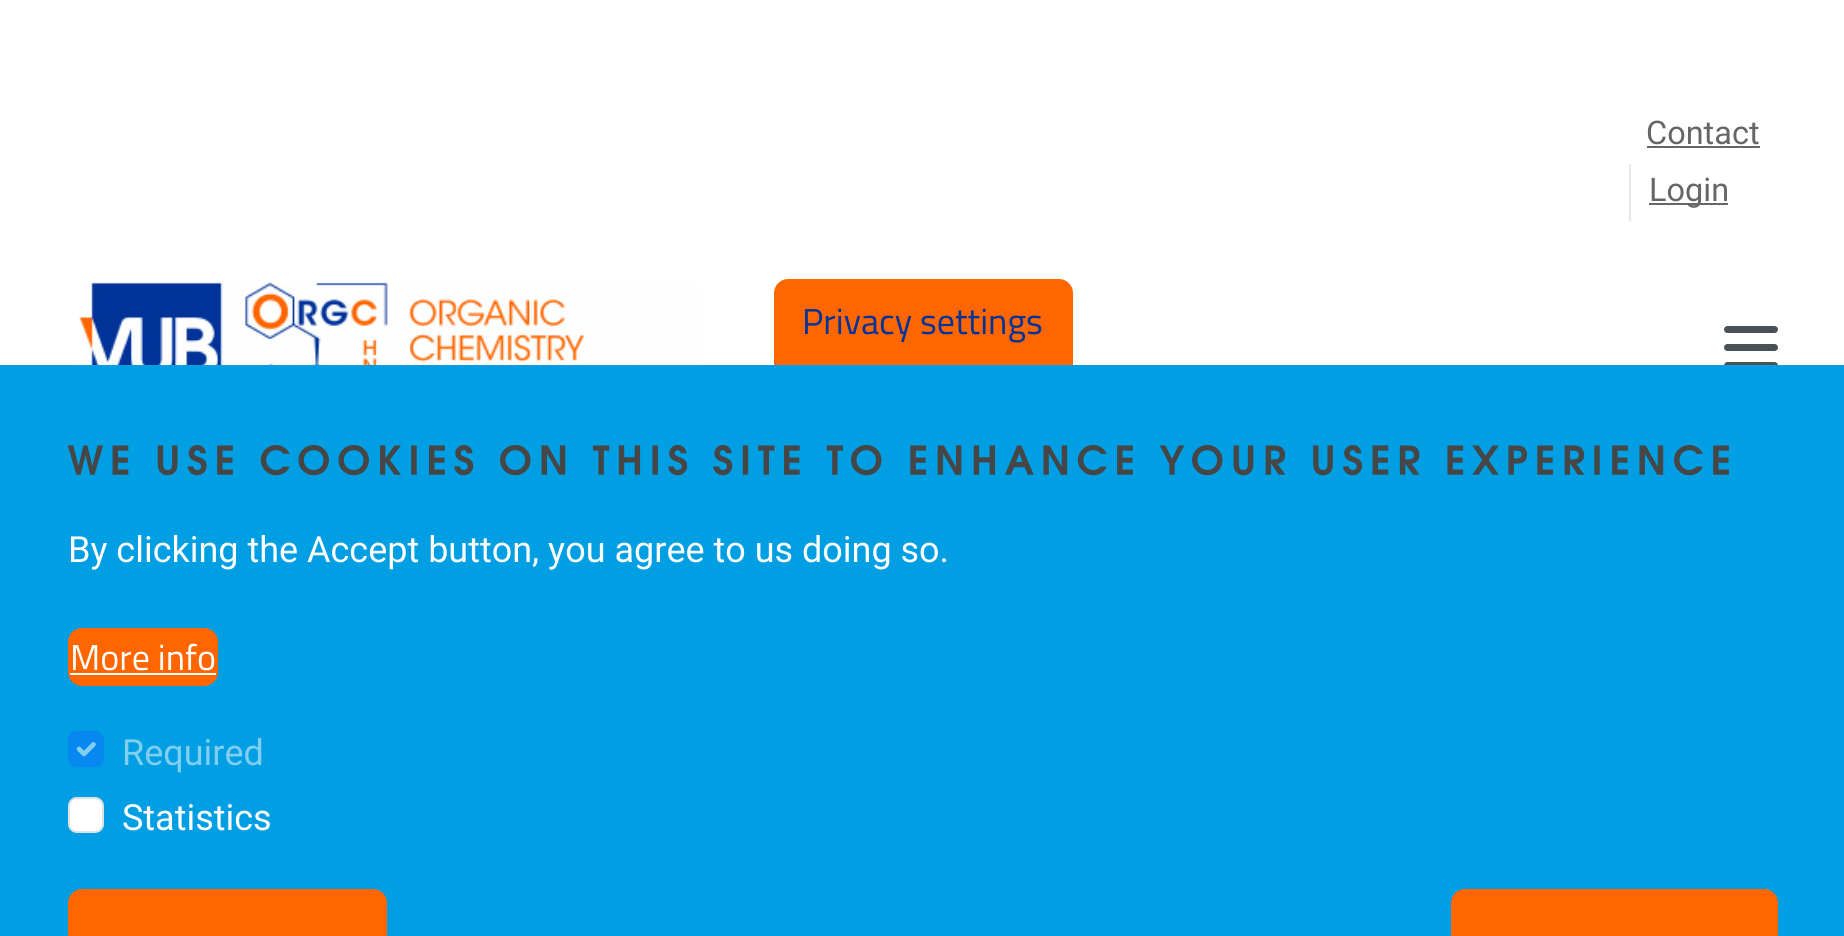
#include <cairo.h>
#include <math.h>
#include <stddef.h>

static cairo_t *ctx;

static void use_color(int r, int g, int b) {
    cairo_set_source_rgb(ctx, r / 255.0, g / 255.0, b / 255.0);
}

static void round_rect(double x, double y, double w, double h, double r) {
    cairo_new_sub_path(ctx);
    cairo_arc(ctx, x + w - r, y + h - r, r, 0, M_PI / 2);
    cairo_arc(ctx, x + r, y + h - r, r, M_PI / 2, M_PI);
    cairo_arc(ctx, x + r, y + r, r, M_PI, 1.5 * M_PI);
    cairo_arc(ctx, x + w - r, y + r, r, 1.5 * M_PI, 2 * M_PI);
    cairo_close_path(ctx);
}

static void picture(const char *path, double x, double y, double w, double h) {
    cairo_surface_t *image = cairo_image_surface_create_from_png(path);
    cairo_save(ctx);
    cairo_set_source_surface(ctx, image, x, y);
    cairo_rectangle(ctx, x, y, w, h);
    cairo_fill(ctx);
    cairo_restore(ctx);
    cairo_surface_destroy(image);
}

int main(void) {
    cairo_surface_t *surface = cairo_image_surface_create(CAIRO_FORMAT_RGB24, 1844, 936);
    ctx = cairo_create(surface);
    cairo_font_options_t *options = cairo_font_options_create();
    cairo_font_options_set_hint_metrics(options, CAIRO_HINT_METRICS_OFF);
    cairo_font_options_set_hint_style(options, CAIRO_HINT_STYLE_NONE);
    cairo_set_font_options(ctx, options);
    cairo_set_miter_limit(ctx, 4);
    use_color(255, 255, 255);
    cairo_paint(ctx);
    cairo_select_font_face(ctx, "Roboto", CAIRO_FONT_SLANT_NORMAL, CAIRO_FONT_WEIGHT_NORMAL);
    cairo_set_font_size(ctx, 32.5);
    use_color(102, 102, 102);
    cairo_move_to(ctx, 1646, 144);
    cairo_show_text(ctx, "Contact");
    cairo_rectangle(ctx, 1647, 146, 113, 2);
    cairo_fill(ctx);
    use_color(230, 230, 230);
    cairo_rectangle(ctx, 1629, 164, 2, 57);
    cairo_fill(ctx);
    use_color(102, 102, 102);
    cairo_rectangle(ctx, 1649, 203, 79, 2);
    cairo_fill(ctx);
    cairo_move_to(ctx, 1649, 201);
    cairo_show_text(ctx, "Login");
    picture("img1.png", 78, 282, 621, 83);
    use_color(73, 80, 87);
    round_rect(1724, 344, 54, 7, 3.5);
    cairo_fill(ctx);
    round_rect(1724, 326, 54, 7, 3.5);
    cairo_fill(ctx);
    round_rect(1724, 362, 54, 7, 3.5);
    cairo_fill(ctx);
    use_color(255, 102, 0);
    cairo_new_path(ctx);
    cairo_move_to(ctx, 788, 280);
    cairo_line_to(ctx, 1059, 280);
    cairo_curve_to(ctx, 1066, 280, 1072, 286, 1072, 293);
    cairo_line_to(ctx, 1072, 364);
    cairo_line_to(ctx, 775, 364);
    cairo_line_to(ctx, 775, 293);
    cairo_curve_to(ctx, 775, 286, 781, 280, 788, 280);
    cairo_close_path(ctx);
    cairo_fill_preserve(ctx);
    cairo_stroke(ctx);
    cairo_select_font_face(ctx, "Titillium Web", CAIRO_FONT_SLANT_NORMAL, CAIRO_FONT_WEIGHT_NORMAL);
    cairo_set_font_size(ctx, 36);
    use_color(0, 51, 153);
    cairo_move_to(ctx, 802, 334);
    cairo_show_text(ctx, "Privacy settings");
    use_color(0, 159, 227);
    cairo_rectangle(ctx, 0, 365, 1844, 571);
    cairo_fill(ctx);
    picture("img2.png", 67, 445, 1662, 31);
    cairo_select_font_face(ctx, "Roboto", CAIRO_FONT_SLANT_NORMAL, CAIRO_FONT_WEIGHT_NORMAL);
    use_color(255, 255, 255);
    cairo_move_to(ctx, 68, 562);
    cairo_show_text(ctx, "By clicking the Accept button, you agree to us doing so.");
    use_color(255, 102, 0);
    round_rect(69, 629, 148, 56, 13);
    cairo_fill_preserve(ctx);
    cairo_stroke(ctx);
    cairo_select_font_face(ctx, "Titillium Web", CAIRO_FONT_SLANT_NORMAL, CAIRO_FONT_WEIGHT_NORMAL);
    use_color(255, 255, 255);
    cairo_move_to(ctx, 70, 670);
    cairo_show_text(ctx, "More info");
    cairo_rectangle(ctx, 70, 673, 146, 2);
    cairo_fill(ctx);
    use_color(7, 135, 240);
    round_rect(68, 731, 36, 36, 9);
    cairo_fill(ctx);
    cairo_new_path(ctx);
    cairo_move_to(ctx, 79, 749);
    cairo_line_to(ctx, 84, 754);
    cairo_line_to(ctx, 93.5, 744.5);
    use_color(128, 207, 241);
    cairo_set_line_width(ctx, 4.7);
    cairo_set_line_cap(ctx, CAIRO_LINE_CAP_ROUND);
    cairo_set_line_join(ctx, CAIRO_LINE_JOIN_ROUND);
    cairo_stroke(ctx);
    round_rect(69, 732, 34, 34, 8);
    use_color(7, 135, 240);
    cairo_set_line_width(ctx, 2);
    cairo_set_line_cap(ctx, CAIRO_LINE_CAP_BUTT);
    cairo_set_line_join(ctx, CAIRO_LINE_JOIN_MITER);
    cairo_stroke(ctx);
    cairo_select_font_face(ctx, "Roboto", CAIRO_FONT_SLANT_NORMAL, CAIRO_FONT_WEIGHT_NORMAL);
    use_color(128, 207, 241);
    cairo_move_to(ctx, 122, 765);
    cairo_show_text(ctx, "Required");
    use_color(255, 255, 255);
    round_rect(69, 798, 34, 34, 8);
    cairo_fill_preserve(ctx);
    use_color(222, 226, 230);
    cairo_stroke(ctx);
    use_color(255, 255, 255);
    cairo_move_to(ctx, 122, 830);
    cairo_show_text(ctx, "Statistics");
    use_color(255, 102, 0);
    round_rect(69, 890, 317, 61, 13);
    cairo_fill_preserve(ctx);
    cairo_stroke(ctx);
    round_rect(1452, 890, 325, 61, 13);
    cairo_fill_preserve(ctx);
    cairo_stroke(ctx);
    cairo_surface_write_to_png(surface, "result.png");
    cairo_font_options_destroy(options);
    cairo_destroy(ctx);
    cairo_surface_destroy(surface);
    return 0;
}
